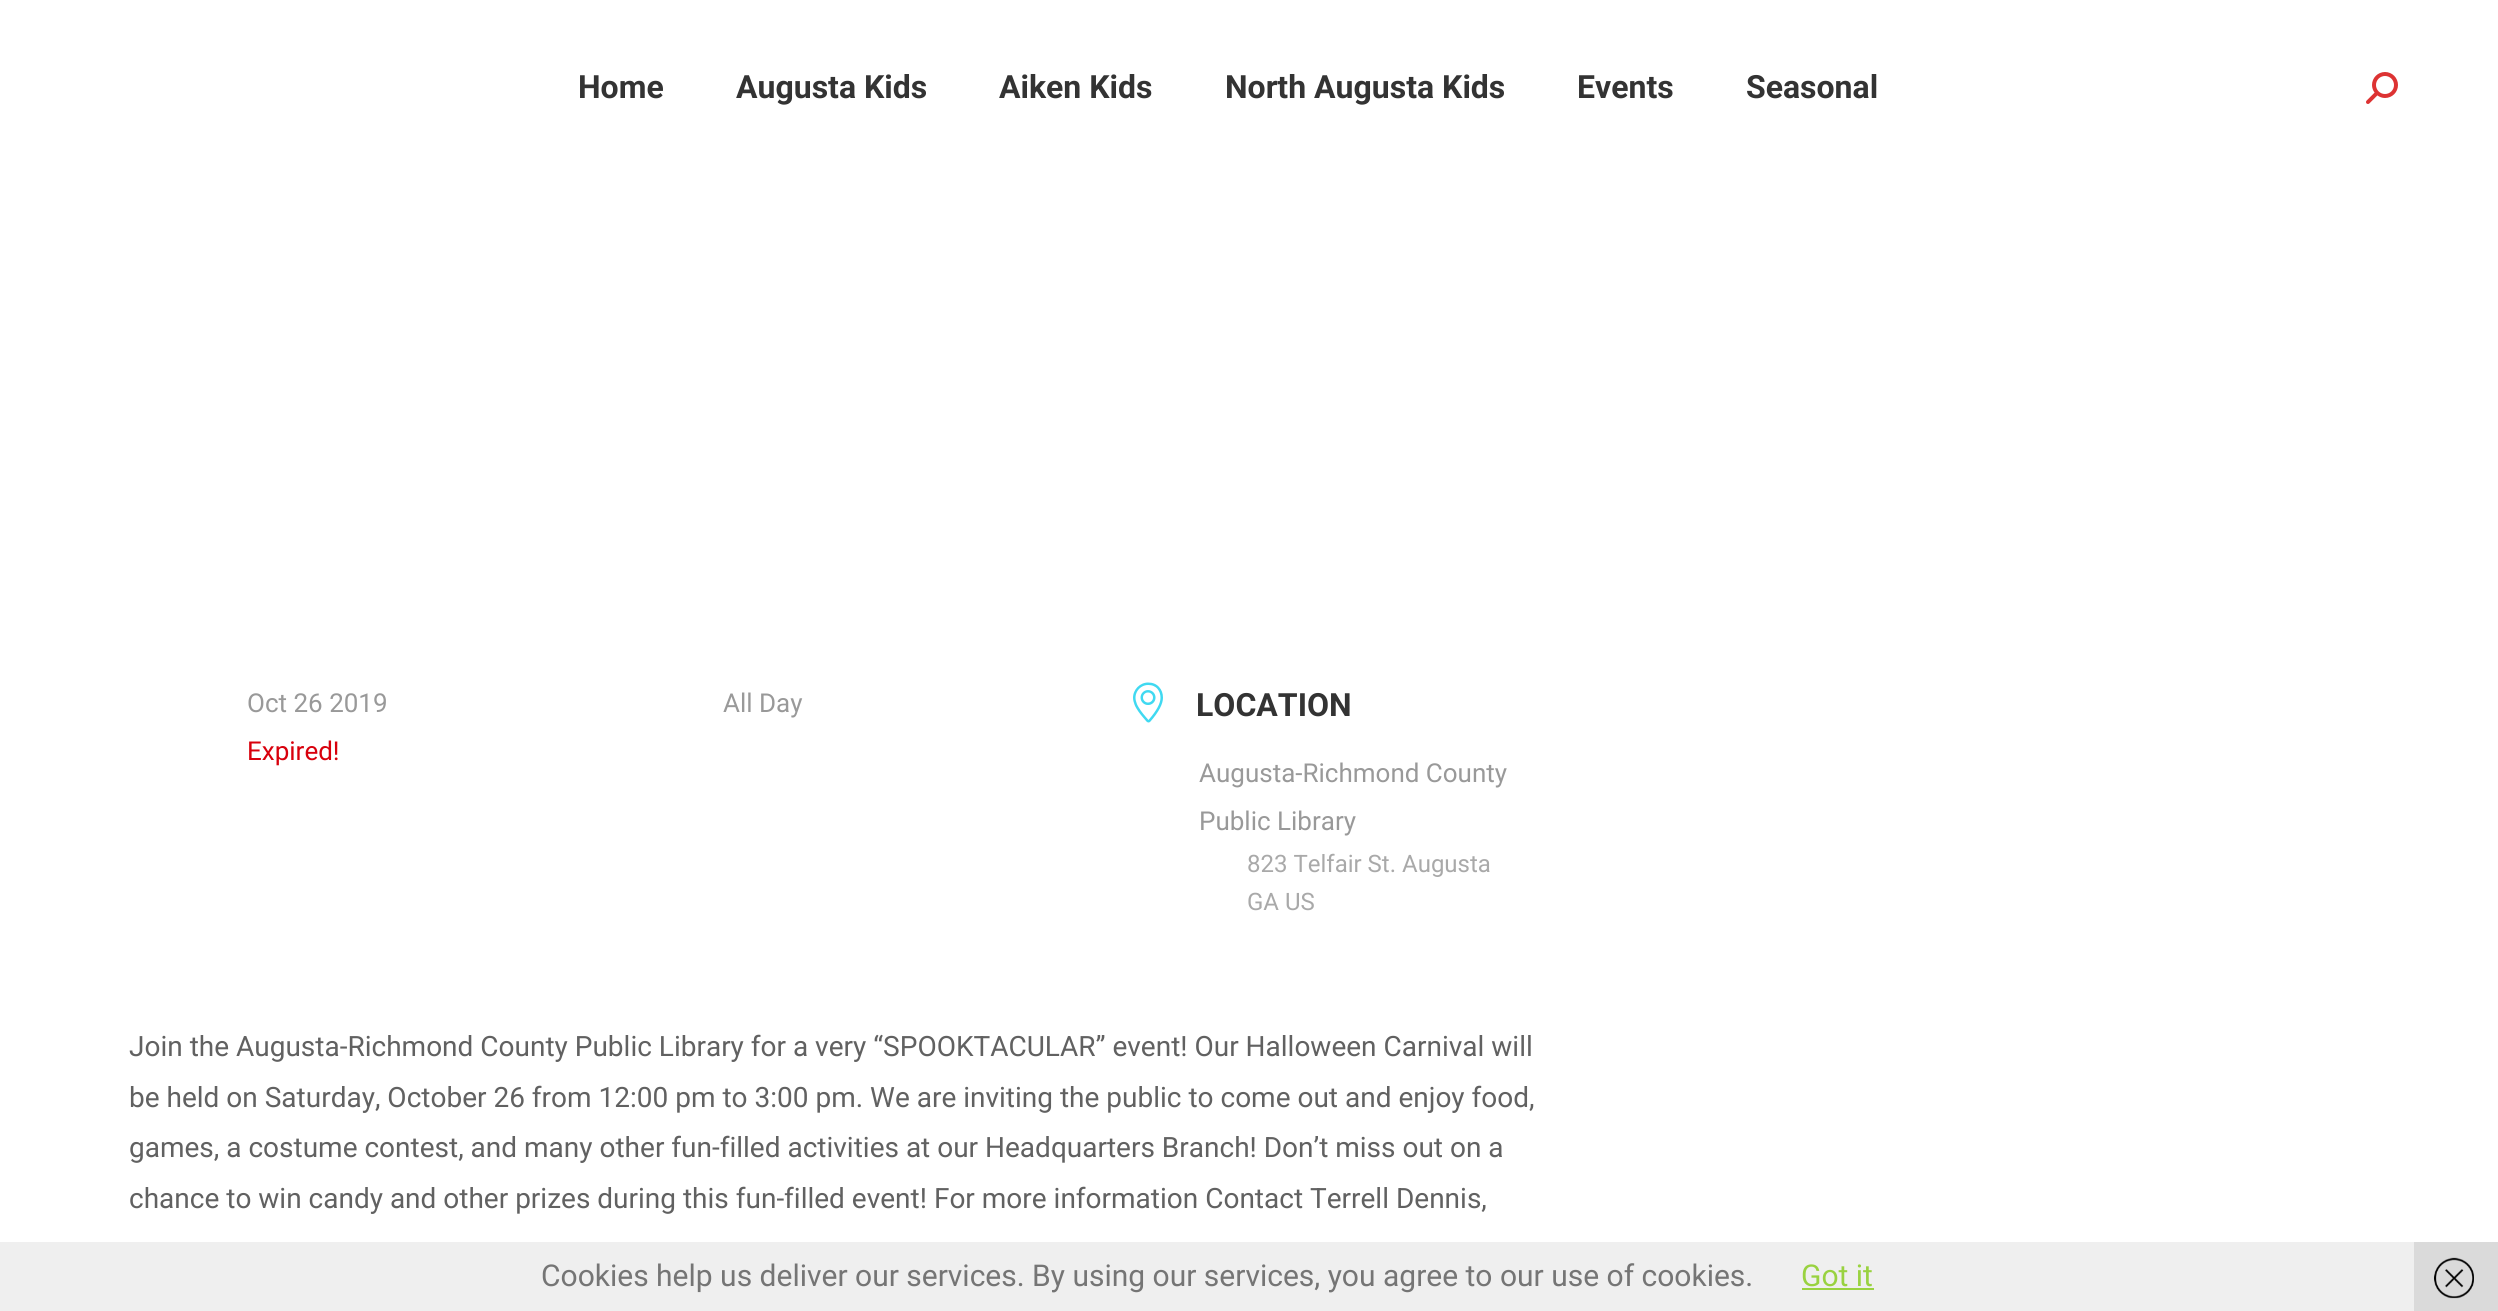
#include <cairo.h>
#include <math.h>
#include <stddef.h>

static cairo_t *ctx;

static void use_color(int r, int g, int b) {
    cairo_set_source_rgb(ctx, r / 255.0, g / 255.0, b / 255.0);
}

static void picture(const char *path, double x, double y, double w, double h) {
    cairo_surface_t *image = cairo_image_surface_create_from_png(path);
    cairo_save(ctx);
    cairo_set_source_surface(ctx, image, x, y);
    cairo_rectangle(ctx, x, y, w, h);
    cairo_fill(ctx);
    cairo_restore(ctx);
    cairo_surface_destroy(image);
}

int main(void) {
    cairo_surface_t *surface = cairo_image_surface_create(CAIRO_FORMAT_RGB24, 2498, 1311);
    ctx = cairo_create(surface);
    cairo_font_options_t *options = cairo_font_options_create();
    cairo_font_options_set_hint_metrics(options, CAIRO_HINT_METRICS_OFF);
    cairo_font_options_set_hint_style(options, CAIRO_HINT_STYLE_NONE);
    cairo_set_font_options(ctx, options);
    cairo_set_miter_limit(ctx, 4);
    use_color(255, 255, 255);
    cairo_paint(ctx);
    cairo_select_font_face(ctx, "Roboto", CAIRO_FONT_SLANT_NORMAL, CAIRO_FONT_WEIGHT_BOLD);
    cairo_set_font_size(ctx, 32);
    use_color(51, 51, 51);
    cairo_move_to(ctx, 578, 98);
    cairo_show_text(ctx, "Home");
    cairo_move_to(ctx, 736, 98);
    cairo_show_text(ctx, "Augusta Kids");
    cairo_move_to(ctx, 999, 98);
    cairo_show_text(ctx, "Aiken Kids");
    cairo_move_to(ctx, 1225, 98);
    cairo_show_text(ctx, "North Augusta Kids");
    cairo_move_to(ctx, 1577, 98);
    cairo_show_text(ctx, "Events");
    cairo_move_to(ctx, 1746, 98);
    cairo_show_text(ctx, "Seasonal");
    picture("img1.png", 2366, 72, 32, 32);
    cairo_select_font_face(ctx, "Roboto", CAIRO_FONT_SLANT_NORMAL, CAIRO_FONT_WEIGHT_NORMAL);
    cairo_set_font_size(ctx, 26);
    use_color(153, 153, 153);
    cairo_move_to(ctx, 247, 712);
    cairo_show_text(ctx, "Oct 26 2019");
    use_color(216, 0, 12);
    cairo_move_to(ctx, 247, 760);
    cairo_show_text(ctx, "Expired!");
    use_color(153, 153, 153);
    cairo_move_to(ctx, 723, 712);
    cairo_show_text(ctx, "All Day");
    picture("img2.png", 1133, 682, 30, 41);
    cairo_select_font_face(ctx, "Roboto", CAIRO_FONT_SLANT_NORMAL, CAIRO_FONT_WEIGHT_BOLD);
    cairo_set_font_size(ctx, 32);
    use_color(51, 51, 51);
    cairo_move_to(ctx, 1196, 716);
    cairo_show_text(ctx, "LOCATION");
    cairo_select_font_face(ctx, "Roboto", CAIRO_FONT_SLANT_NORMAL, CAIRO_FONT_WEIGHT_NORMAL);
    cairo_set_font_size(ctx, 26);
    use_color(153, 153, 153);
    cairo_move_to(ctx, 1199, 782);
    cairo_show_text(ctx, "Augusta-Richmond County");
    cairo_move_to(ctx, 1199, 830);
    cairo_show_text(ctx, "Public Library");
    cairo_set_font_size(ctx, 24);
    use_color(169, 169, 169);
    cairo_move_to(ctx, 1247, 872);
    cairo_show_text(ctx, "823 Telfair St. Augusta");
    cairo_move_to(ctx, 1247, 910);
    cairo_show_text(ctx, "GA US");
    cairo_set_font_size(ctx, 28);
    use_color(97, 97, 97);
    cairo_move_to(ctx, 129, 1056);
    cairo_show_text(ctx, "Join the Augusta-Richmond County Public Library for a very “SPOOKTACULAR” event! Our Halloween Carnival will");
    cairo_move_to(ctx, 129, 1107);
    cairo_show_text(ctx, "be held on Saturday, October 26 from 12:00 pm to 3:00 pm. We are inviting the public to come out and enjoy food,");
    cairo_move_to(ctx, 129, 1157);
    cairo_show_text(ctx, "games, a costume contest, and many other fun-filled activities at our Headquarters Branch! Don’t miss out on a");
    cairo_move_to(ctx, 129, 1208);
    cairo_show_text(ctx, "chance to win candy and other prizes during this fun-filled event! For more information Contact Terrell Dennis,");
    cairo_set_source_rgba(ctx, 0.933, 0.933, 0.933, 0.9);
    cairo_rectangle(ctx, 0, 1242, 2414, 69);
    cairo_fill(ctx);
    cairo_set_font_size(ctx, 30);
    use_color(117, 117, 117);
    cairo_move_to(ctx, 541, 1286);
    cairo_show_text(ctx, "Cookies help us deliver our services. By using our services, you agree to our use of cookies.");
    use_color(153, 210, 64);
    cairo_move_to(ctx, 1801, 1286);
    cairo_show_text(ctx, "Got it");
    cairo_rectangle(ctx, 1802, 1288, 72, 2);
    cairo_fill(ctx);
    use_color(218, 218, 218);
    cairo_rectangle(ctx, 2414, 1242, 84, 69);
    cairo_fill(ctx);
    picture("img3.png", 2434, 1257, 40, 42);
    cairo_surface_write_to_png(surface, "result.png");
    cairo_font_options_destroy(options);
    cairo_destroy(ctx);
    cairo_surface_destroy(surface);
    return 0;
}
